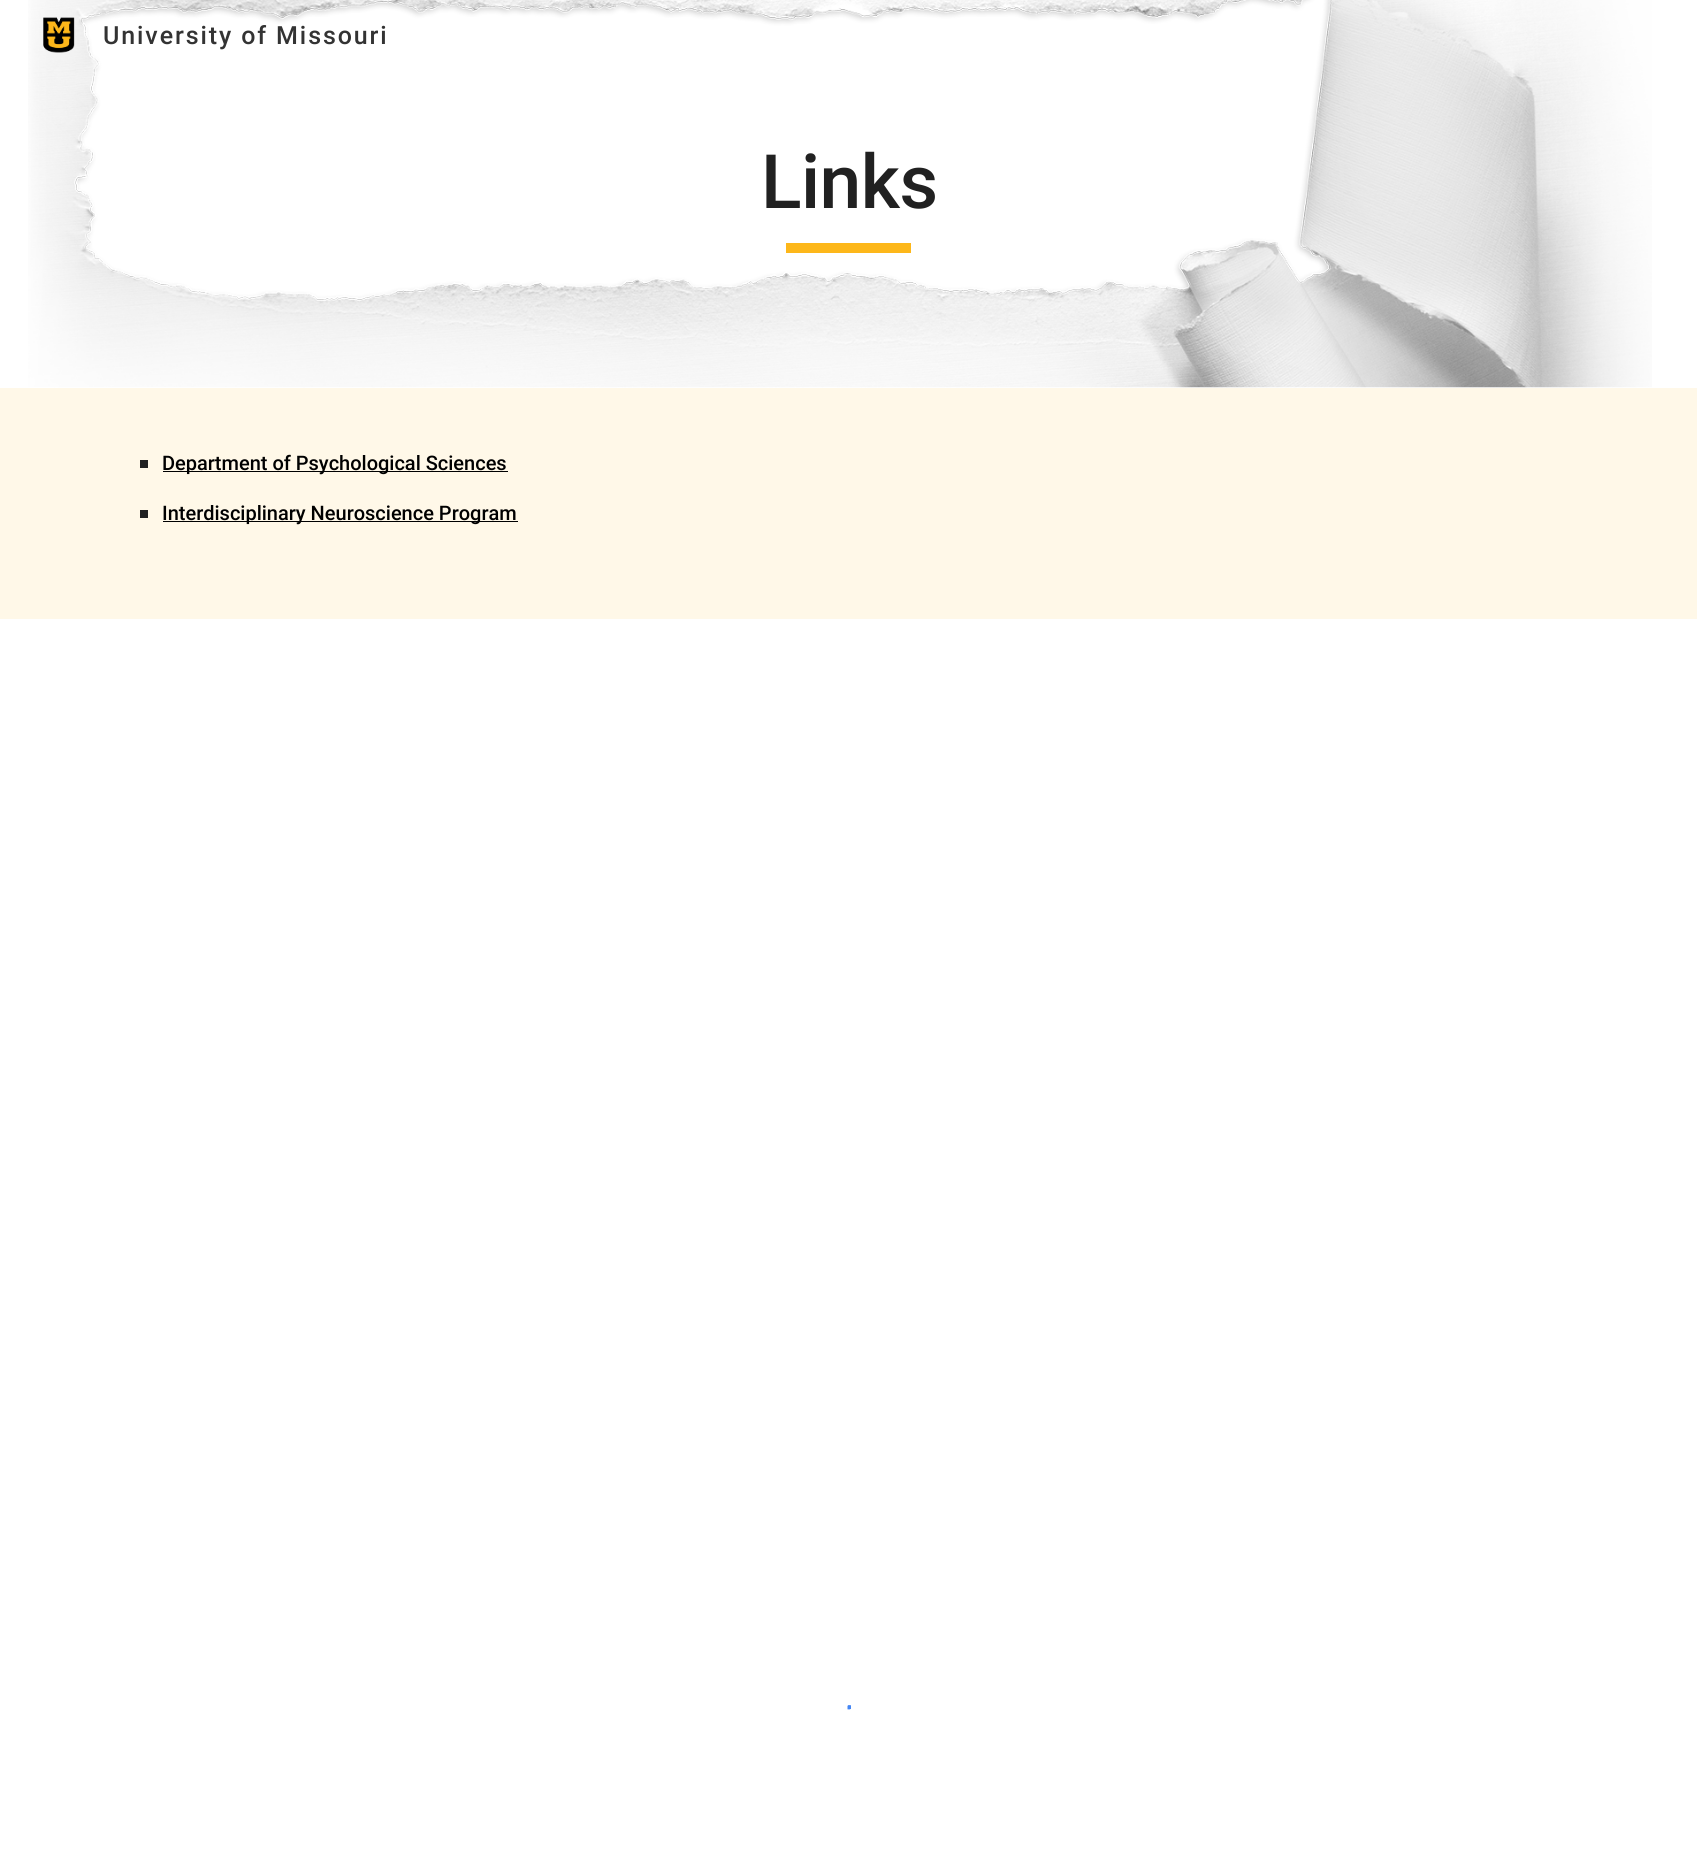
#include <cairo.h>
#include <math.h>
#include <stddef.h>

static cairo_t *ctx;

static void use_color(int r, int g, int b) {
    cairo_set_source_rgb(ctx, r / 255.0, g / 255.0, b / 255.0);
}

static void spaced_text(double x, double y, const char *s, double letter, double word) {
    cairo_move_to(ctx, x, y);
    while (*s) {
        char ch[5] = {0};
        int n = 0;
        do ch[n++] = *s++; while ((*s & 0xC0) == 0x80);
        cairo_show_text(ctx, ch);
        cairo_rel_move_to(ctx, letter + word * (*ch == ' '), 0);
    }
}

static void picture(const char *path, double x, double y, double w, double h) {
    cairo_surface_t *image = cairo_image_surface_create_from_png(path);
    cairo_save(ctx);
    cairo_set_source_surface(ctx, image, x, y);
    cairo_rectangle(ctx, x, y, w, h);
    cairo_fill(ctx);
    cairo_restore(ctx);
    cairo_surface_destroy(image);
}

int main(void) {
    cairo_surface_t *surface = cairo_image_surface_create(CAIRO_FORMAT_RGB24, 1697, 1874);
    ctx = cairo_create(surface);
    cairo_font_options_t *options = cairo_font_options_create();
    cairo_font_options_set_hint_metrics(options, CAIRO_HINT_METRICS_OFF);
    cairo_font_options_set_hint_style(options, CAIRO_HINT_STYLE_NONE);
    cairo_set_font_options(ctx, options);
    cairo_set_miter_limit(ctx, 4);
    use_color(255, 255, 255);
    cairo_paint(ctx);
    picture("img2.png", 28, 0, 1624, 388);
    picture("img1.png", 43, 17, 32, 36);
    cairo_select_font_face(ctx, "Roboto Medium", CAIRO_FONT_SLANT_NORMAL, CAIRO_FONT_WEIGHT_NORMAL);
    cairo_set_font_size(ctx, 25);
    use_color(51, 51, 51);
    spaced_text(103, 44, "University of Missouri", 1.9, 0);
    cairo_set_font_size(ctx, 75);
    use_color(33, 33, 33);
    spaced_text(761, 208, "Links", -0.5, 0);
    use_color(253, 183, 26);
    cairo_rectangle(ctx, 786, 243, 125, 10);
    cairo_fill(ctx);
    use_color(255, 248, 232);
    cairo_rectangle(ctx, 0, 388, 1697, 231);
    cairo_fill(ctx);
    use_color(33, 33, 33);
    cairo_rectangle(ctx, 140, 460, 8, 8);
    cairo_fill(ctx);
    use_color(0, 0, 0);
    cairo_rectangle(ctx, 163, 471, 345, 1);
    cairo_fill(ctx);
    cairo_set_font_size(ctx, 20);
    cairo_move_to(ctx, 162, 470);
    cairo_show_text(ctx, "Department of Psychological Sciences");
    use_color(33, 33, 33);
    cairo_rectangle(ctx, 140, 510, 8, 8);
    cairo_fill(ctx);
    use_color(0, 0, 0);
    cairo_rectangle(ctx, 163, 521, 355, 1);
    cairo_fill(ctx);
    cairo_move_to(ctx, 162, 520);
    cairo_show_text(ctx, "Interdisciplinary Neuroscience Program");
    cairo_save(ctx);
    cairo_rectangle(ctx, 831, 1705, 18, 35);
    cairo_clip(ctx);
    cairo_new_path(ctx);
    cairo_move_to(ctx, 847.5, 1707.5);
    cairo_curve_to(ctx, 850.5, 1707.5, 853.5, 1708, 856.5, 1709.5);
    cairo_curve_to(ctx, 869.5, 1716.5, 865.5, 1737.5, 850, 1738.5);
    use_color(68, 134, 244);
    cairo_set_line_width(ctx, 3.7);
    cairo_stroke(ctx);
    cairo_restore(ctx);
    cairo_save(ctx);
    cairo_rectangle(ctx, 848, 1705, 3, 35);
    cairo_clip(ctx);
    cairo_new_path(ctx);
    cairo_move_to(ctx, 837.5, 1733.5);
    cairo_curve_to(ctx, 835, 1730.5, 833, 1726.5, 833, 1722.5);
    cairo_curve_to(ctx, 833, 1704, 860.5, 1701, 864, 1719.5);
    cairo_curve_to(ctx, 865, 1724.5, 863.5, 1730, 860, 1733.5);
    use_color(68, 134, 244);
    cairo_set_line_width(ctx, 3.8);
    cairo_stroke(ctx);
    cairo_restore(ctx);
    cairo_save(ctx);
    cairo_rectangle(ctx, 849, 1705, 17, 35);
    cairo_clip(ctx);
    cairo_new_path(ctx);
    cairo_move_to(ctx, 847.5, 1738.5);
    cairo_curve_to(ctx, 832, 1737.5, 828, 1716.5, 841, 1709.5);
    cairo_curve_to(ctx, 844, 1708, 847, 1707.5, 850, 1707.5);
    cairo_move_to(ctx, 847.5, 1738.5);
    cairo_curve_to(ctx, 832, 1737.5, 828, 1716.5, 841, 1709.5);
    cairo_curve_to(ctx, 844, 1708, 847, 1707.5, 850, 1707.5);
    cairo_move_to(ctx, 847.5, 1738.5);
    cairo_curve_to(ctx, 832, 1737.5, 828, 1716.5, 841, 1709.5);
    cairo_curve_to(ctx, 844, 1708, 847, 1707.5, 850, 1707.5);
    cairo_move_to(ctx, 847.5, 1738.5);
    cairo_curve_to(ctx, 832, 1737.5, 828, 1716.5, 841, 1709.5);
    cairo_curve_to(ctx, 844, 1708, 847, 1707.5, 850, 1707.5);
    use_color(68, 134, 244);
    cairo_set_line_width(ctx, 3.7);
    cairo_stroke(ctx);
    cairo_restore(ctx);
    cairo_surface_write_to_png(surface, "result.png");
    cairo_font_options_destroy(options);
    cairo_destroy(ctx);
    cairo_surface_destroy(surface);
    return 0;
}
